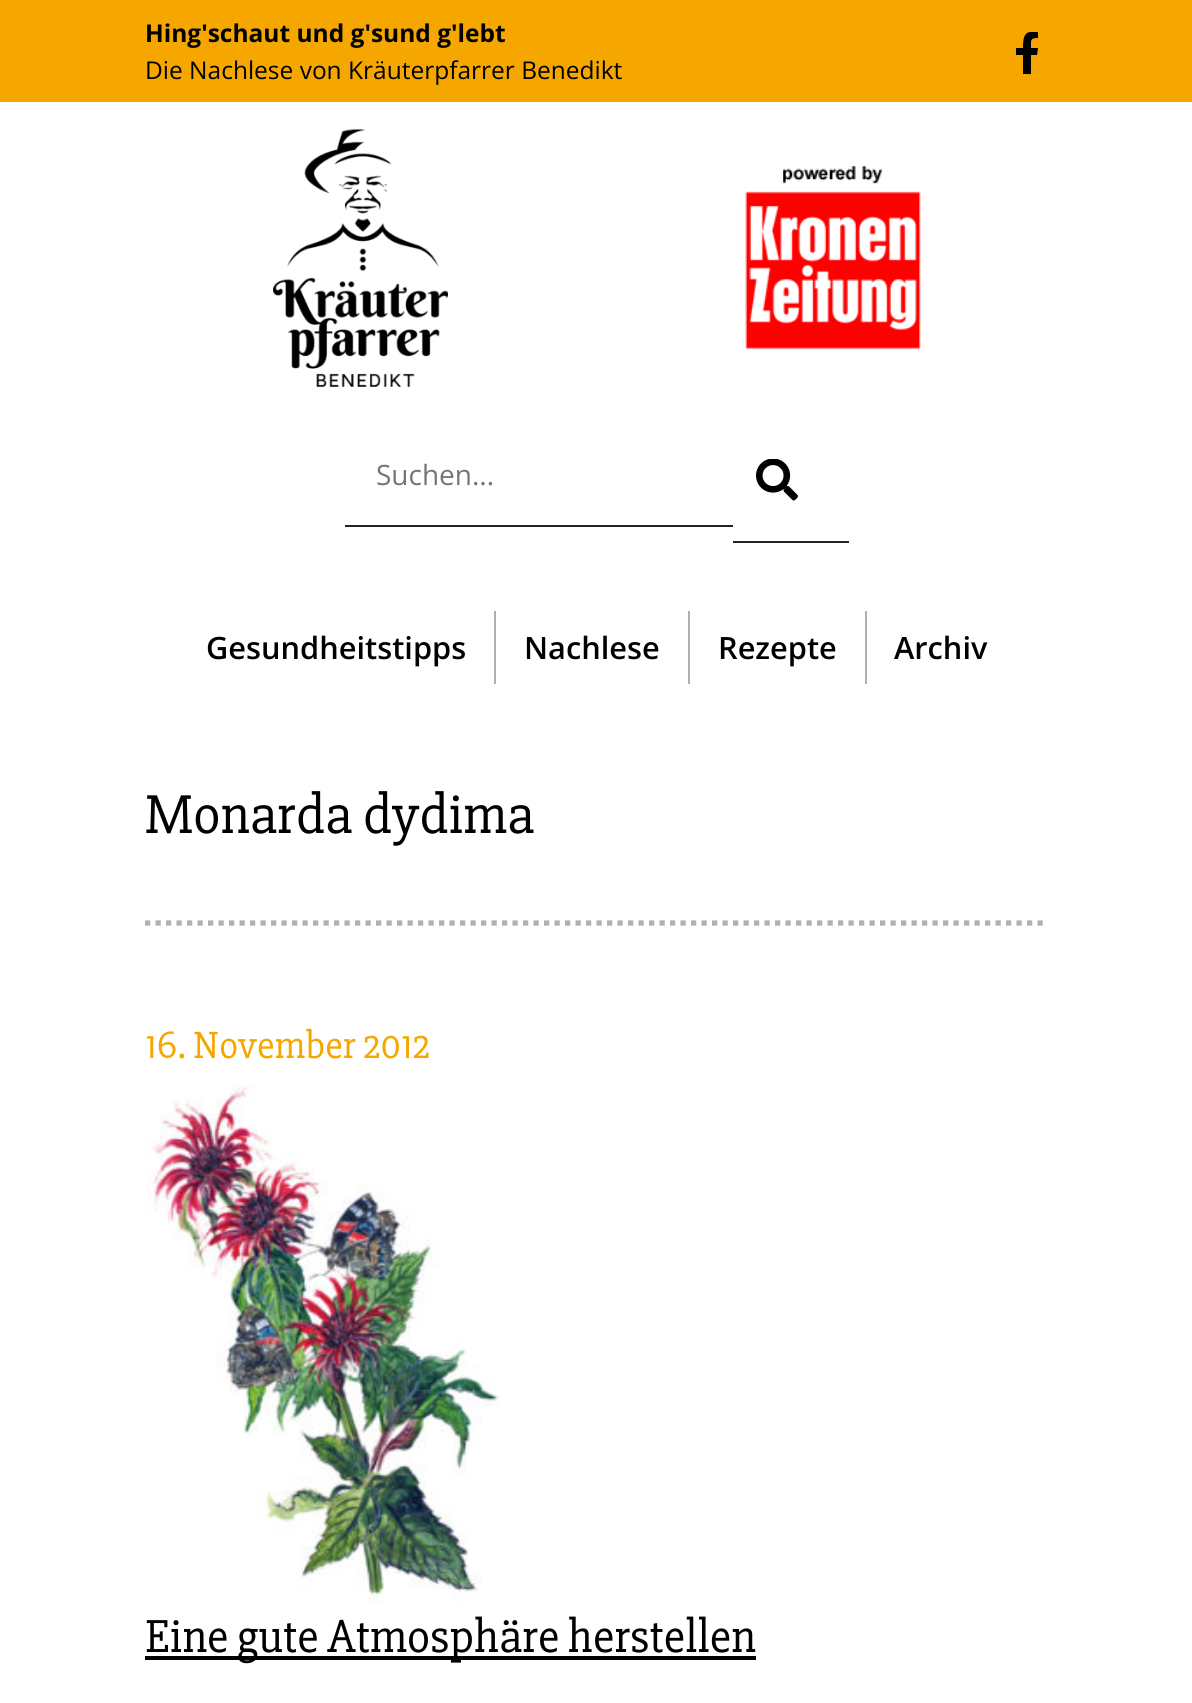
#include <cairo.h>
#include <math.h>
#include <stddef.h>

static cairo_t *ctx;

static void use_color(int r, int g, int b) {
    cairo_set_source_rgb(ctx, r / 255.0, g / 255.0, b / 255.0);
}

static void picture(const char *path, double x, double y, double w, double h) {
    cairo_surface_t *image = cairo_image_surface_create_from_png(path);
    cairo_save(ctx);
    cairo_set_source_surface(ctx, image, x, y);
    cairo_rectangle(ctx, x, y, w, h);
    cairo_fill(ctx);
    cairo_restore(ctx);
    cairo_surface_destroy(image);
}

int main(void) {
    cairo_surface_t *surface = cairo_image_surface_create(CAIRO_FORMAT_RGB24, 1192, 1703);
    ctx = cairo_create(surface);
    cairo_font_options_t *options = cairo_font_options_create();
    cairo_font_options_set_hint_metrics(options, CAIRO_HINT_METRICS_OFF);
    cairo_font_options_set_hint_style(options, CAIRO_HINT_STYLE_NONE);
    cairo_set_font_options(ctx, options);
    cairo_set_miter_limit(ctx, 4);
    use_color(255, 255, 255);
    cairo_paint(ctx);
    use_color(245, 167, 0);
    cairo_rectangle(ctx, 0, 0, 1192, 102);
    cairo_fill(ctx);
    cairo_select_font_face(ctx, "Open Sans", CAIRO_FONT_SLANT_NORMAL, CAIRO_FONT_WEIGHT_BOLD);
    cairo_set_font_size(ctx, 24.5);
    use_color(0, 0, 0);
    cairo_move_to(ctx, 145, 42);
    cairo_show_text(ctx, "Hing'schaut und g'sund g'lebt");
    cairo_select_font_face(ctx, "Open Sans", CAIRO_FONT_SLANT_NORMAL, CAIRO_FONT_WEIGHT_NORMAL);
    cairo_move_to(ctx, 145, 79);
    cairo_show_text(ctx, "Die Nachlese von Kräuterpfarrer Benedikt");
    cairo_save(ctx);
    cairo_rectangle(ctx, 1006, 32, 42, 42);
    cairo_clip(ctx);
    cairo_new_path(ctx);
    cairo_move_to(ctx, 1037, 55);
    cairo_line_to(ctx, 1038, 48);
    cairo_line_to(ctx, 1031, 48);
    cairo_curve_to(ctx, 1031, 40, 1030, 38, 1038, 38);
    cairo_line_to(ctx, 1038, 32);
    cairo_curve_to(ctx, 1025, 30, 1023, 35, 1023, 48);
    cairo_line_to(ctx, 1016, 48);
    cairo_line_to(ctx, 1016, 55);
    cairo_line_to(ctx, 1023, 55);
    cairo_line_to(ctx, 1023, 74);
    cairo_line_to(ctx, 1031, 74);
    cairo_line_to(ctx, 1031, 55);
    cairo_close_path(ctx);
    cairo_fill(ctx);
    cairo_restore(ctx);
    picture("img1.png", 273, 129, 175, 258);
    picture("img2.png", 745, 166, 176, 183);
    use_color(33, 37, 41);
    cairo_rectangle(ctx, 345, 525, 388, 2);
    cairo_fill(ctx);
    cairo_rectangle(ctx, 733, 541, 116, 2);
    cairo_fill(ctx);
    cairo_set_font_size(ctx, 28);
    use_color(117, 117, 117);
    cairo_move_to(ctx, 376, 485);
    cairo_show_text(ctx, "Suchen...");
    picture("img3.png", 756, 459, 42, 42);
    cairo_select_font_face(ctx, "Open Sans SemiBold", CAIRO_FONT_SLANT_NORMAL, CAIRO_FONT_WEIGHT_NORMAL);
    cairo_set_font_size(ctx, 30.75);
    use_color(0, 0, 0);
    cairo_move_to(ctx, 206, 659);
    cairo_show_text(ctx, "Gesundheitstipps");
    use_color(176, 176, 176);
    cairo_rectangle(ctx, 494, 611, 2, 73);
    cairo_fill(ctx);
    use_color(0, 0, 0);
    cairo_move_to(ctx, 524, 659);
    cairo_show_text(ctx, "Nachlese");
    use_color(176, 176, 176);
    cairo_rectangle(ctx, 688, 611, 2, 73);
    cairo_fill(ctx);
    use_color(0, 0, 0);
    cairo_move_to(ctx, 718, 659);
    cairo_show_text(ctx, "Rezepte");
    use_color(176, 176, 176);
    cairo_rectangle(ctx, 865, 611, 2, 73);
    cairo_fill(ctx);
    use_color(0, 0, 0);
    cairo_move_to(ctx, 894, 659);
    cairo_show_text(ctx, "Archiv");
    cairo_new_path(ctx);
    cairo_move_to(ctx, 145, 923);
    cairo_line_to(ctx, 1048, 923);
    use_color(176, 176, 176);
    cairo_set_line_width(ctx, 5.2);
    cairo_set_dash(ctx, (double[]){5.25, 5.25}, 2, 0);
    cairo_stroke(ctx);
    cairo_select_font_face(ctx, "Slabo 27px", CAIRO_FONT_SLANT_NORMAL, CAIRO_FONT_WEIGHT_NORMAL);
    cairo_set_font_size(ctx, 56.5);
    use_color(0, 0, 0);
    cairo_move_to(ctx, 145, 833);
    cairo_show_text(ctx, "Monarda dydima");
    cairo_set_font_size(ctx, 39.25);
    use_color(245, 167, 0);
    cairo_move_to(ctx, 145, 1058);
    cairo_show_text(ctx, "16. November 2012");
    picture("img4.png", 145, 1085, 357, 518);
    use_color(0, 0, 0);
    cairo_rectangle(ctx, 145, 1656, 611, 4);
    cairo_fill(ctx);
    cairo_set_font_size(ctx, 47.8);
    cairo_move_to(ctx, 145, 1652);
    cairo_show_text(ctx, "Eine gute Atmosphäre herstellen");
    cairo_surface_write_to_png(surface, "result.png");
    cairo_font_options_destroy(options);
    cairo_destroy(ctx);
    cairo_surface_destroy(surface);
    return 0;
}
